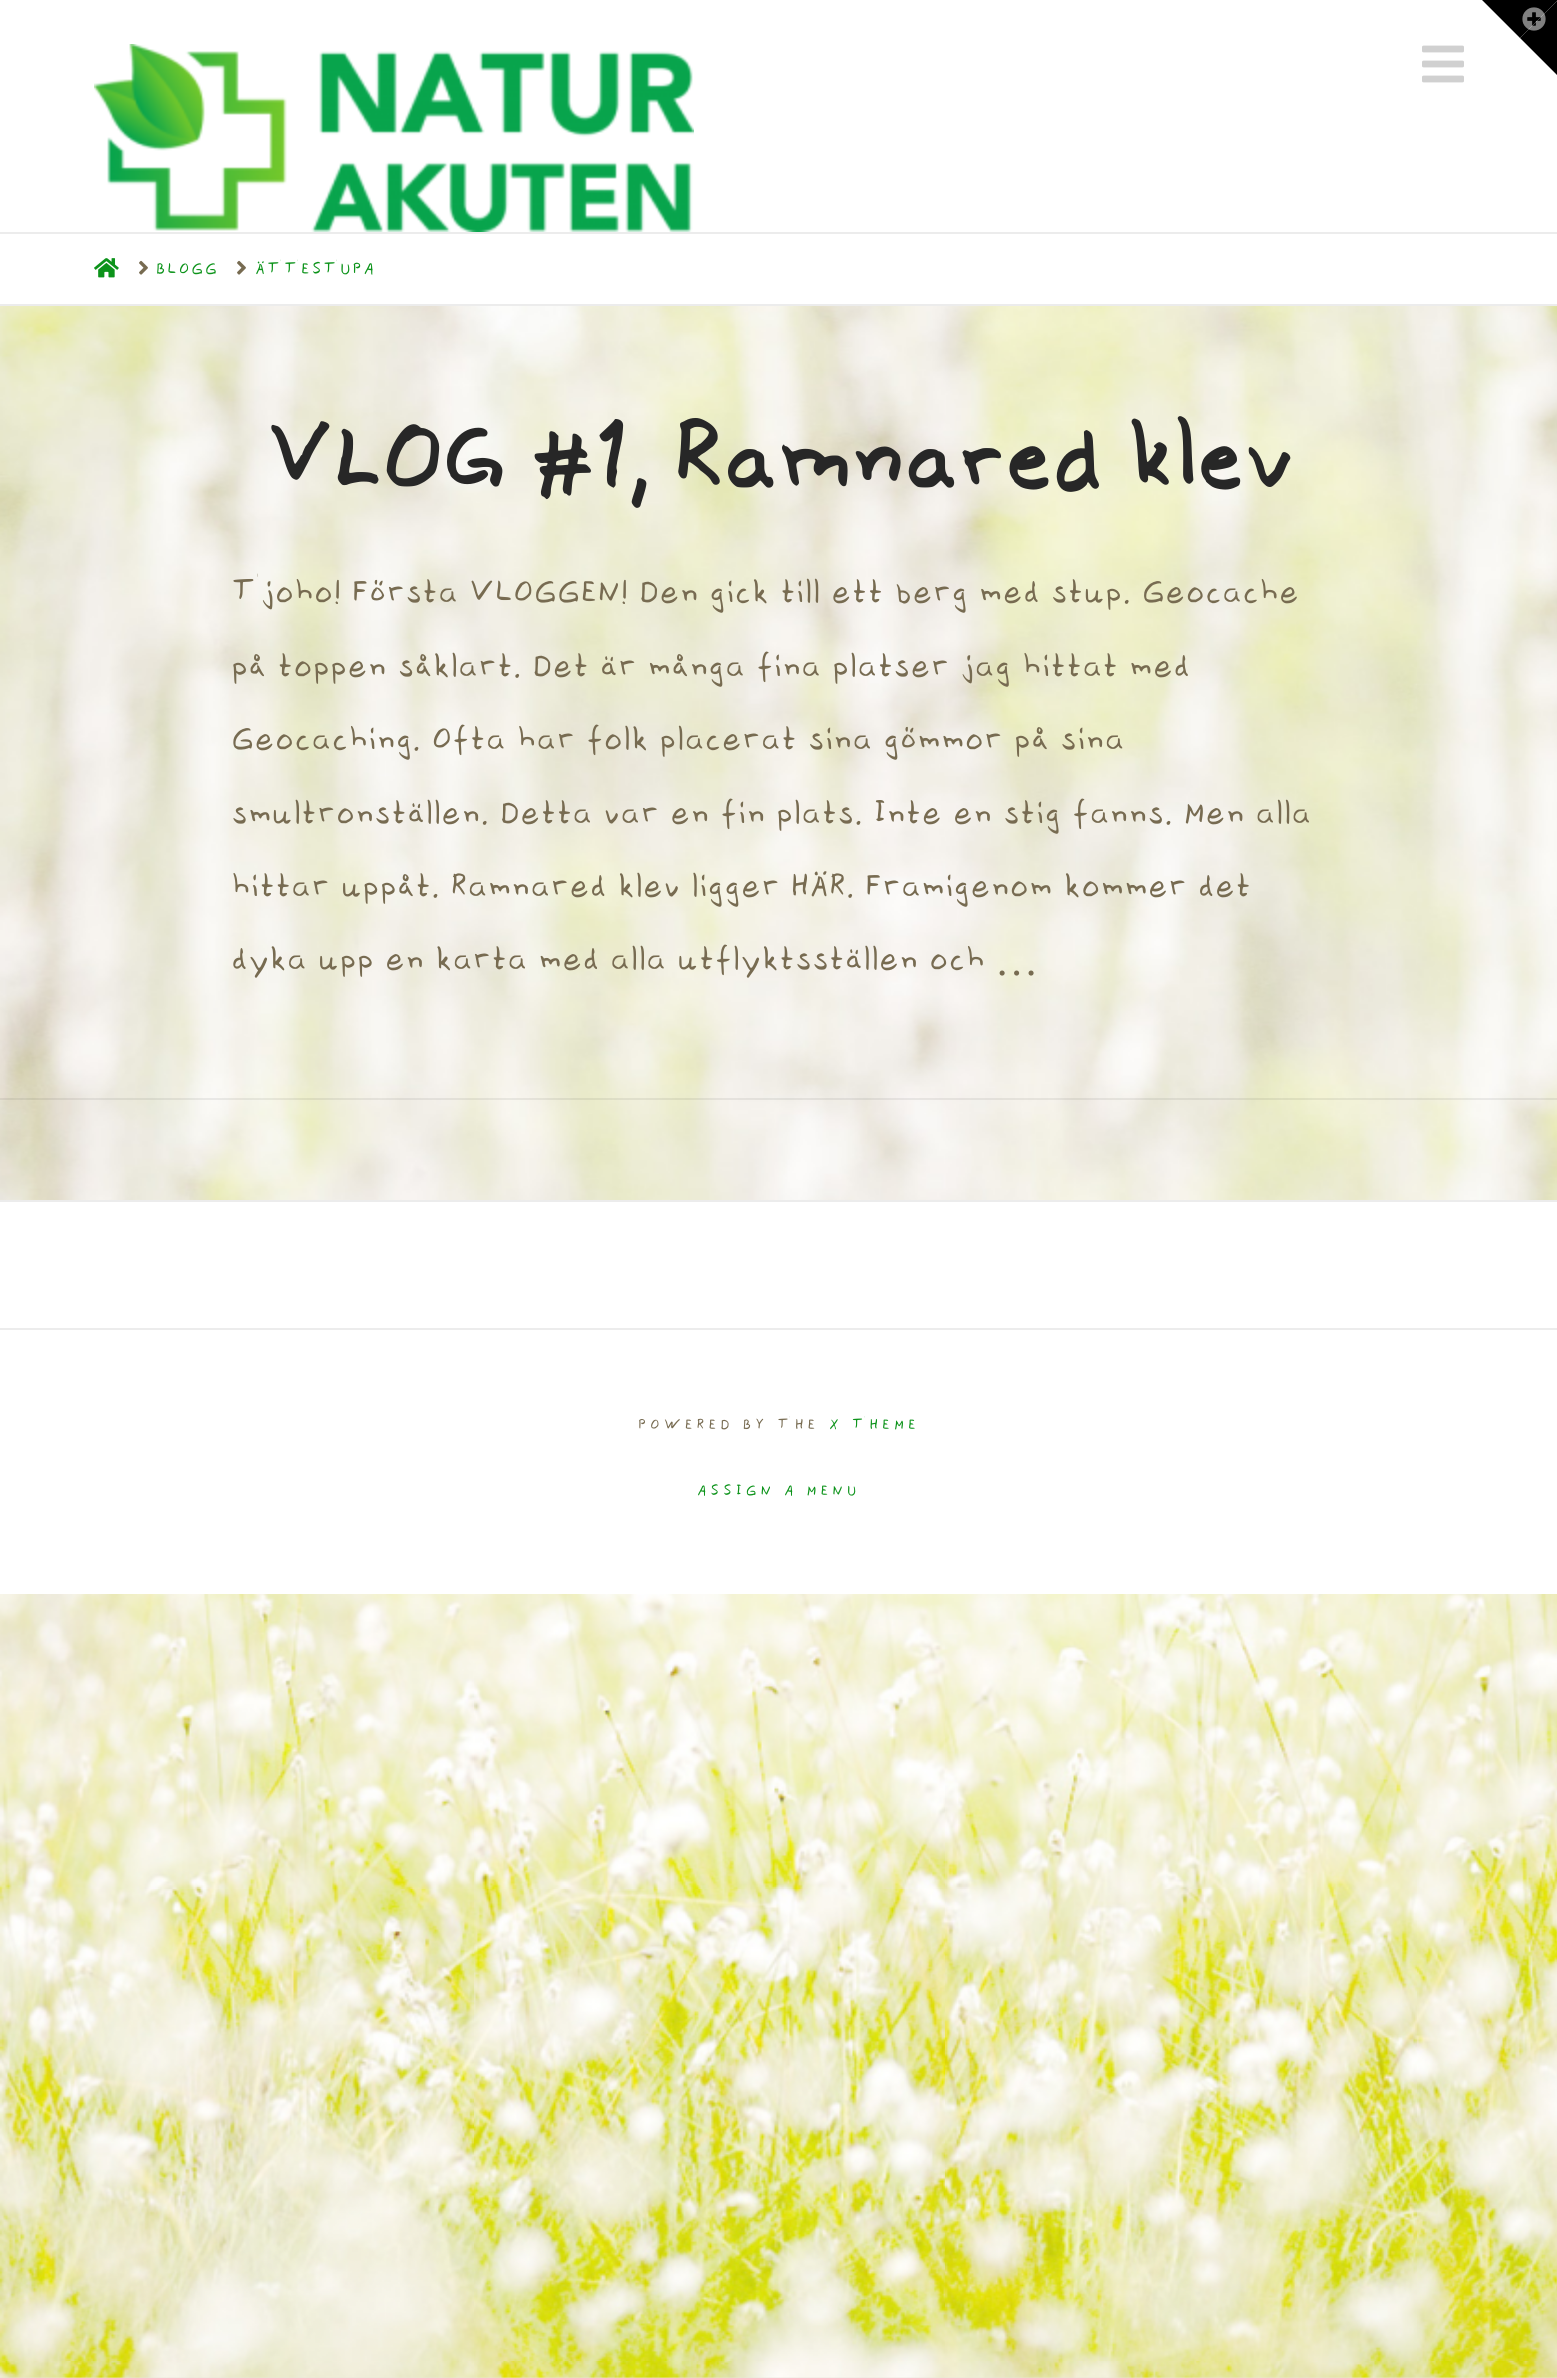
#include <cairo.h>
#include <math.h>
#include <stddef.h>

static cairo_t *ctx;

static void use_color(int r, int g, int b) {
    cairo_set_source_rgb(ctx, r / 255.0, g / 255.0, b / 255.0);
}

static void spaced_text(double x, double y, const char *s, double letter, double word) {
    cairo_move_to(ctx, x, y);
    while (*s) {
        char ch[5] = {0};
        int n = 0;
        do ch[n++] = *s++; while ((*s & 0xC0) == 0x80);
        cairo_show_text(ctx, ch);
        cairo_rel_move_to(ctx, letter + word * (*ch == ' '), 0);
    }
}

static void picture(const char *path, double x, double y, double w, double h) {
    cairo_surface_t *image = cairo_image_surface_create_from_png(path);
    cairo_save(ctx);
    cairo_set_source_surface(ctx, image, x, y);
    cairo_rectangle(ctx, x, y, w, h);
    cairo_fill(ctx);
    cairo_restore(ctx);
    cairo_surface_destroy(image);
}

int main(void) {
    cairo_surface_t *surface = cairo_image_surface_create(CAIRO_FORMAT_RGB24, 1557, 2378);
    ctx = cairo_create(surface);
    cairo_font_options_t *options = cairo_font_options_create();
    cairo_font_options_set_hint_metrics(options, CAIRO_HINT_METRICS_OFF);
    cairo_font_options_set_hint_style(options, CAIRO_HINT_STYLE_NONE);
    cairo_set_font_options(ctx, options);
    cairo_set_miter_limit(ctx, 4);
    use_color(231, 228, 222);
    cairo_paint(ctx);
    use_color(255, 255, 255);
    cairo_rectangle(ctx, 0, 0, 1557, 232);
    cairo_fill(ctx);
    use_color(0, 0, 0);
    cairo_new_path(ctx);
    cairo_move_to(ctx, 1482, 0);
    cairo_line_to(ctx, 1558, 0);
    cairo_line_to(ctx, 1520, 38);
    cairo_close_path(ctx);
    cairo_fill(ctx);
    cairo_new_path(ctx);
    cairo_move_to(ctx, 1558, 0);
    cairo_line_to(ctx, 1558, 76);
    cairo_line_to(ctx, 1520, 38);
    cairo_close_path(ctx);
    cairo_fill(ctx);
    picture("img1.png", 1522, 7, 24, 24);
    use_color(236, 236, 236);
    cairo_rectangle(ctx, 0, 232, 1557, 2);
    cairo_fill(ctx);
    picture("img2.png", 94, 44, 600, 188);
    picture("img3.png", 1422, 45, 42, 38);
    use_color(255, 255, 255);
    cairo_rectangle(ctx, 0, 234, 1557, 70);
    cairo_fill(ctx);
    use_color(236, 236, 236);
    cairo_rectangle(ctx, 0, 304, 1557, 2);
    cairo_fill(ctx);
    picture("img4.png", 94, 258, 25, 20);
    picture("img5.png", 139, 260, 9, 15);
    cairo_select_font_face(ctx, "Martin", CAIRO_FONT_SLANT_NORMAL, CAIRO_FONT_WEIGHT_NORMAL);
    cairo_set_font_size(ctx, 22);
    use_color(12, 147, 26);
    spaced_text(156, 277, "BLOGG", 2, 0);
    picture("img5.png", 237, 260, 9, 15);
    spaced_text(255, 277, "ÄTTESTUPA", 2, 0);
    picture("img6.png", 0, 306, 1557, 2072);
    cairo_set_source_rgba(ctx, 0, 0, 0, 0.07);
    cairo_rectangle(ctx, 0, 1098, 1557, 2);
    cairo_fill(ctx);
    cairo_select_font_face(ctx, "Martin", CAIRO_FONT_SLANT_NORMAL, CAIRO_FONT_WEIGHT_BOLD);
    cairo_set_font_size(ctx, 111);
    use_color(39, 39, 39);
    spaced_text(265, 498, "VLOG #1, Ramnared klev", -3.9, 0);
    cairo_select_font_face(ctx, "Martin", CAIRO_FONT_SLANT_NORMAL, CAIRO_FONT_WEIGHT_NORMAL);
    cairo_set_font_size(ctx, 43.2);
    use_color(119, 107, 81);
    cairo_move_to(ctx, 231, 608);
    cairo_show_text(ctx, "Tjoho! Första VLOGGEN! Den gick till ett berg med stup. Geocache");
    cairo_move_to(ctx, 231, 682);
    cairo_show_text(ctx, "på toppen såklart. Det är många fina platser jag hittat med");
    cairo_move_to(ctx, 231, 755);
    cairo_show_text(ctx, "Geocaching. Ofta har folk placerat sina gömmor på sina");
    cairo_move_to(ctx, 231, 829);
    cairo_show_text(ctx, "smultronställen. Detta var en fin plats. Inte en stig fanns. Men alla");
    cairo_move_to(ctx, 231, 902);
    cairo_show_text(ctx, "hittar uppåt. Ramnared klev ligger HÄR. Framigenom kommer det");
    cairo_move_to(ctx, 231, 975);
    cairo_show_text(ctx, "dyka upp en karta med alla utflyktsställen och");
    cairo_select_font_face(ctx, "Liberation Serif", CAIRO_FONT_SLANT_NORMAL, CAIRO_FONT_WEIGHT_NORMAL);
    cairo_move_to(ctx, 995, 975);
    cairo_show_text(ctx, "…");
    use_color(255, 255, 255);
    cairo_rectangle(ctx, 0, 1202, 1557, 126);
    cairo_fill(ctx);
    use_color(236, 236, 236);
    cairo_rectangle(ctx, 0, 1200, 1557, 2);
    cairo_fill(ctx);
    use_color(255, 255, 255);
    cairo_rectangle(ctx, 0, 1330, 1557, 264);
    cairo_fill(ctx);
    use_color(236, 236, 236);
    cairo_rectangle(ctx, 0, 1328, 1557, 2);
    cairo_fill(ctx);
    cairo_select_font_face(ctx, "Martin", CAIRO_FONT_SLANT_NORMAL, CAIRO_FONT_WEIGHT_NORMAL);
    cairo_set_font_size(ctx, 20);
    use_color(119, 107, 81);
    spaced_text(638, 1432, "POWERED BY THE", 4, 0);
    use_color(12, 147, 26);
    spaced_text(829, 1432, "X THEME", 4, 0);
    spaced_text(697, 1498, "ASSIGN A MENU", 4, 0);
    cairo_surface_write_to_png(surface, "result.png");
    cairo_font_options_destroy(options);
    cairo_destroy(ctx);
    cairo_surface_destroy(surface);
    return 0;
}
